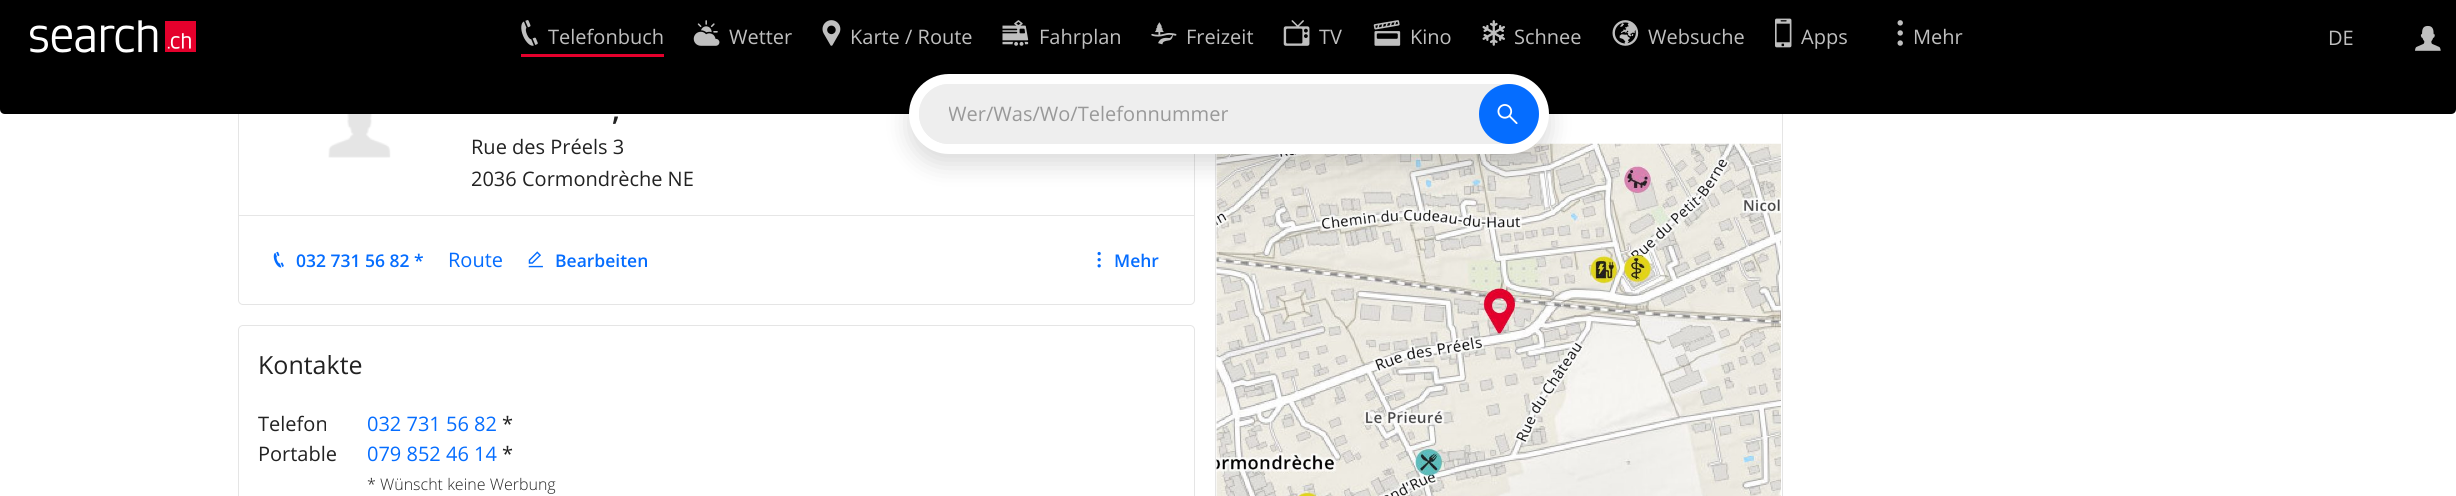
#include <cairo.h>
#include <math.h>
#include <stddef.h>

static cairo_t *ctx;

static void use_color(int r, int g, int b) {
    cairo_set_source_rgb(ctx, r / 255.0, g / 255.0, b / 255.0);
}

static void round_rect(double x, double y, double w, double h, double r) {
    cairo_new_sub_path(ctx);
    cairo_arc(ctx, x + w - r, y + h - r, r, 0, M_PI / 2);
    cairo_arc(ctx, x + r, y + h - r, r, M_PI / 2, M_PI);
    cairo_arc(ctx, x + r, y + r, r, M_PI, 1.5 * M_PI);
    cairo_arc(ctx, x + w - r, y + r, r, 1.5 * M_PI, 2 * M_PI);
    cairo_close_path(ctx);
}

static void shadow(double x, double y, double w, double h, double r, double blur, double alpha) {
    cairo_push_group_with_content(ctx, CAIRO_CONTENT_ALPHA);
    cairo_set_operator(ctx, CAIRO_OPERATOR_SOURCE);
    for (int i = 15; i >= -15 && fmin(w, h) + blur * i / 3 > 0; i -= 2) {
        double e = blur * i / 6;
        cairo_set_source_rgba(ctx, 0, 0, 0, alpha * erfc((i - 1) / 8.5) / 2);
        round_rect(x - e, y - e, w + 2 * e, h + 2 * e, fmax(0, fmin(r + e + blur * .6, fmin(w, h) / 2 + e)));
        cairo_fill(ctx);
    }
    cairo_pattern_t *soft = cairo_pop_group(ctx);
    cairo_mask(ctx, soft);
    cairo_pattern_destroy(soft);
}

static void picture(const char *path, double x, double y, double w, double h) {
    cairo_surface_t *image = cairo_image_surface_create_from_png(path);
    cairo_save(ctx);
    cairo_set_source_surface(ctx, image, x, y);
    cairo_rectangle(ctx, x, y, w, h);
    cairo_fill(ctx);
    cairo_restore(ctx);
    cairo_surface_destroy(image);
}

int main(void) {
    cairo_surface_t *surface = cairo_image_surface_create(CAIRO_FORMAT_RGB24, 2456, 496);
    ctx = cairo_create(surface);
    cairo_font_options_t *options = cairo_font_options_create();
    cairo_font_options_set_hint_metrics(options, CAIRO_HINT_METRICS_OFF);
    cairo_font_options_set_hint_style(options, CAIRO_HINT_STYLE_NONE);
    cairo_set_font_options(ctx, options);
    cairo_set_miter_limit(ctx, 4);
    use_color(255, 255, 255);
    cairo_paint(ctx);
    round_rect(238.5, 65.5, 956, 239, 4.5);
    use_color(229, 229, 229);
    cairo_set_line_width(ctx, 1);
    cairo_stroke(ctx);
    cairo_rectangle(ctx, 1215.5, 65.5, 567, 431);
    cairo_stroke(ctx);
    use_color(0, 0, 0);
    cairo_rectangle(ctx, 0, 0, 2456, 74);
    cairo_fill(ctx);
    picture("img1.png", 30, 20, 166, 33);
    use_color(228, 0, 44);
    cairo_rectangle(ctx, 521, 54, 143, 3);
    cairo_fill(ctx);
    picture("img2.png", 521, 20, 17, 26);
    cairo_select_font_face(ctx, "Open Sans", CAIRO_FONT_SLANT_NORMAL, CAIRO_FONT_WEIGHT_NORMAL);
    cairo_set_font_size(ctx, 20);
    use_color(191, 191, 191);
    cairo_move_to(ctx, 548, 44);
    cairo_show_text(ctx, "Telefonbuch");
    picture("img3.png", 693, 20, 27, 26);
    cairo_move_to(ctx, 729, 44);
    cairo_show_text(ctx, "Wetter");
    picture("img4.png", 822, 20, 19, 26);
    cairo_move_to(ctx, 850, 44);
    cairo_show_text(ctx, "Karte / Route");
    picture("img5.png", 1002, 20, 27, 26);
    cairo_move_to(ctx, 1039, 44);
    cairo_show_text(ctx, "Fahrplan");
    picture("img6.png", 1151, 22, 26, 23);
    cairo_move_to(ctx, 1186, 44);
    cairo_show_text(ctx, "Freizeit");
    picture("img7.png", 1283, 20, 27, 26);
    cairo_move_to(ctx, 1319, 44);
    cairo_show_text(ctx, "TV");
    picture("img8.png", 1373, 20, 28, 26);
    cairo_move_to(ctx, 1410, 44);
    cairo_show_text(ctx, "Kino");
    picture("img9.png", 1482, 20, 23, 26);
    cairo_move_to(ctx, 1514, 44);
    cairo_show_text(ctx, "Schnee");
    picture("img10.png", 1612, 20, 27, 26);
    cairo_move_to(ctx, 1648, 44);
    cairo_show_text(ctx, "Websuche");
    picture("img11.png", 1775, 18, 17, 30);
    cairo_move_to(ctx, 1801, 44);
    cairo_show_text(ctx, "Apps");
    picture("img12.png", 1897, 20, 6, 26);
    cairo_move_to(ctx, 1913, 44);
    cairo_show_text(ctx, "Mehr");
    cairo_move_to(ctx, 2328, 45);
    cairo_show_text(ctx, "DE");
    picture("img13.png", 2415, 25, 26, 26);
    use_color(0, 0, 0);
    cairo_new_path(ctx);
    cairo_move_to(ctx, 0, 74);
    cairo_line_to(ctx, 2456, 74);
    cairo_line_to(ctx, 2456, 109);
    cairo_curve_to(ctx, 2456, 112, 2454, 114, 2451, 114);
    cairo_line_to(ctx, 5, 114);
    cairo_curve_to(ctx, 2, 114, 0, 112, 0, 109);
    cairo_close_path(ctx);
    cairo_fill(ctx);
    picture("img19.png", 1216, 143, 565, 353);
    use_color(0, 0, 0);
    shadow(909, 84, 640, 80, 40, 12.5, 0.15);
    use_color(255, 255, 255);
    round_rect(909, 74, 640, 80, 40);
    cairo_fill(ctx);
    use_color(238, 238, 238);
    round_rect(919, 84, 620, 60, 30);
    cairo_fill(ctx);
    round_rect(919, 84, 560, 60, 30);
    cairo_fill(ctx);
    cairo_save(ctx);
    cairo_rectangle(ctx, 949, 100, 530, 28);
    cairo_clip(ctx);
    use_color(153, 153, 153);
    cairo_move_to(ctx, 948, 121);
    cairo_show_text(ctx, "Wer/Was/Wo/Telefonnummer");
    cairo_restore(ctx);
    use_color(5, 109, 255);
    cairo_new_path(ctx);
    cairo_arc(ctx, 1509, 114, 30, 0, 2 * M_PI);
    cairo_fill(ctx);
    picture("img14.png", 1497, 104, 21, 20);
    picture("img15.png", 328, 114, 63, 44);
    cairo_select_font_face(ctx, "Open Sans SemiBold", CAIRO_FONT_SLANT_NORMAL, CAIRO_FONT_WEIGHT_NORMAL);
    cairo_set_font_size(ctx, 30);
    use_color(34, 34, 34);
    cairo_move_to(ctx, 612, 120);
    cairo_show_text(ctx, ",");
    cairo_select_font_face(ctx, "Open Sans", CAIRO_FONT_SLANT_NORMAL, CAIRO_FONT_WEIGHT_NORMAL);
    cairo_set_font_size(ctx, 20);
    cairo_move_to(ctx, 471, 154);
    cairo_show_text(ctx, "Rue des Préels 3");
    cairo_move_to(ctx, 471, 186);
    cairo_show_text(ctx, "2036 Cormondrèche NE");
    use_color(230, 230, 230);
    cairo_rectangle(ctx, 239, 215, 955, 1);
    cairo_fill(ctx);
    picture("img16.png", 273, 251, 11, 17);
    cairo_select_font_face(ctx, "Open Sans SemiBold", CAIRO_FONT_SLANT_NORMAL, CAIRO_FONT_WEIGHT_NORMAL);
    cairo_set_font_size(ctx, 17.5);
    use_color(5, 109, 255);
    cairo_move_to(ctx, 296, 267);
    cairo_show_text(ctx, "032 731 56 82 *");
    cairo_select_font_face(ctx, "Open Sans", CAIRO_FONT_SLANT_NORMAL, CAIRO_FONT_WEIGHT_NORMAL);
    cairo_set_font_size(ctx, 20);
    cairo_move_to(ctx, 448, 267);
    cairo_show_text(ctx, "Route");
    picture("img17.png", 528, 251, 15, 17);
    cairo_select_font_face(ctx, "Open Sans SemiBold", CAIRO_FONT_SLANT_NORMAL, CAIRO_FONT_WEIGHT_NORMAL);
    cairo_set_font_size(ctx, 17.5);
    cairo_move_to(ctx, 555, 267);
    cairo_show_text(ctx, "Bearbeiten");
    picture("img18.png", 1097, 251, 4, 17);
    cairo_move_to(ctx, 1114, 267);
    cairo_show_text(ctx, "Mehr");
    round_rect(238.5, 325.5, 956, 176, 4.5);
    use_color(229, 229, 229);
    cairo_stroke(ctx);
    cairo_select_font_face(ctx, "Open Sans", CAIRO_FONT_SLANT_NORMAL, CAIRO_FONT_WEIGHT_NORMAL);
    cairo_set_font_size(ctx, 25);
    use_color(34, 34, 34);
    cairo_move_to(ctx, 258, 374);
    cairo_show_text(ctx, "Kontakte");
    cairo_set_font_size(ctx, 20);
    cairo_move_to(ctx, 258, 431);
    cairo_show_text(ctx, "Telefon");
    use_color(5, 109, 255);
    cairo_move_to(ctx, 367, 431);
    cairo_show_text(ctx, "032 731 56 82");
    use_color(34, 34, 34);
    cairo_move_to(ctx, 502, 431);
    cairo_show_text(ctx, "*");
    cairo_move_to(ctx, 258, 461);
    cairo_show_text(ctx, "Portable");
    use_color(5, 109, 255);
    cairo_move_to(ctx, 367, 461);
    cairo_show_text(ctx, "079 852 46 14");
    use_color(34, 34, 34);
    cairo_move_to(ctx, 502, 461);
    cairo_show_text(ctx, "*");
    cairo_select_font_face(ctx, "Open Sans Light", CAIRO_FONT_SLANT_NORMAL, CAIRO_FONT_WEIGHT_NORMAL);
    cairo_set_font_size(ctx, 16);
    cairo_move_to(ctx, 367, 490);
    cairo_show_text(ctx, "* Wünscht keine Werbung");
    cairo_surface_write_to_png(surface, "result.png");
    cairo_font_options_destroy(options);
    cairo_destroy(ctx);
    cairo_surface_destroy(surface);
    return 0;
}
